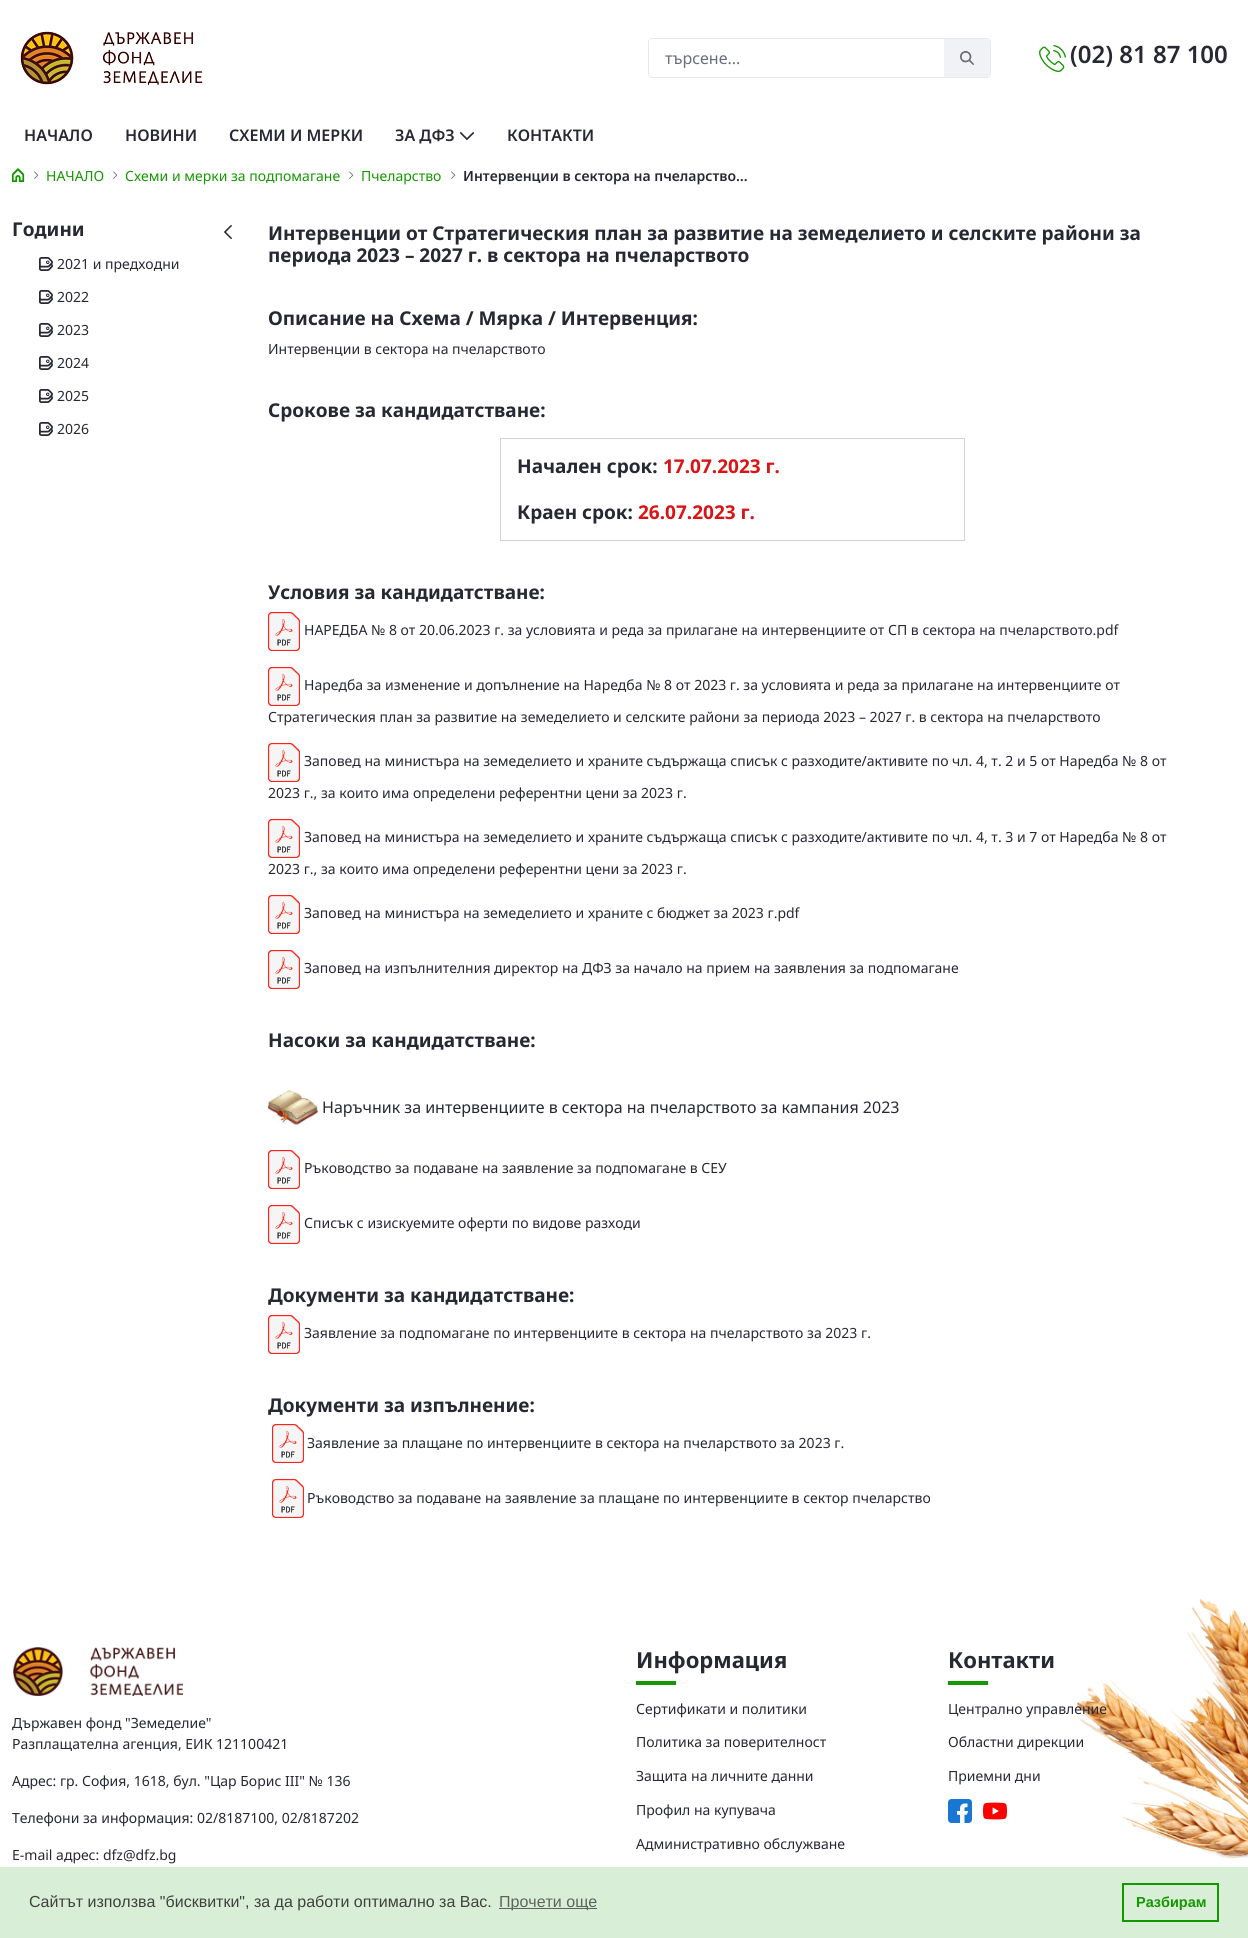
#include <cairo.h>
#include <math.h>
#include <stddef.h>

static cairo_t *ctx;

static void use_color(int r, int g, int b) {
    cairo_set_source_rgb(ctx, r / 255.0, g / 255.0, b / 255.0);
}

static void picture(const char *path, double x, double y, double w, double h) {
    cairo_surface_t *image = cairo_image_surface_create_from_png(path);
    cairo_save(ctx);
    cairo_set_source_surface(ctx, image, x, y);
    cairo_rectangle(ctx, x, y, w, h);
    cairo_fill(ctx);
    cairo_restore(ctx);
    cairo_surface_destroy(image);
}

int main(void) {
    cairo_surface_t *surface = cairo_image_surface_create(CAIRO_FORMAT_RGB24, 1248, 1938);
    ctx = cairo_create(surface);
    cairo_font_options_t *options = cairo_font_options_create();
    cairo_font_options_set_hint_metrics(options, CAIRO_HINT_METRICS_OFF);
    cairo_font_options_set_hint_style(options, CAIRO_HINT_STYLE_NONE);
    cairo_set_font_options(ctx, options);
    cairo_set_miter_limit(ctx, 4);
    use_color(255, 255, 255);
    cairo_paint(ctx);
    picture("img1.png", 1077, 1598, 171, 261);
    picture("img2.png", 20, 31, 183, 54);
    use_color(231, 231, 237);
    cairo_set_fill_rule(ctx, CAIRO_FILL_RULE_EVEN_ODD);
    cairo_new_path(ctx);
    cairo_move_to(ctx, 652, 38);
    cairo_line_to(ctx, 944, 38);
    cairo_line_to(ctx, 944, 78);
    cairo_line_to(ctx, 652, 78);
    cairo_curve_to(ctx, 650, 78, 648, 76, 648, 74);
    cairo_line_to(ctx, 648, 42);
    cairo_curve_to(ctx, 648, 40, 650, 38, 652, 38);
    cairo_close_path(ctx);
    cairo_move_to(ctx, 652, 39);
    cairo_line_to(ctx, 944, 39);
    cairo_line_to(ctx, 944, 77);
    cairo_line_to(ctx, 652, 77);
    cairo_curve_to(ctx, 650, 77, 649, 76, 649, 74);
    cairo_line_to(ctx, 649, 42);
    cairo_curve_to(ctx, 649, 40, 650, 39, 652, 39);
    cairo_close_path(ctx);
    cairo_fill(ctx);
    cairo_select_font_face(ctx, "Noto Sans", CAIRO_FONT_SLANT_NORMAL, CAIRO_FONT_WEIGHT_NORMAL);
    cairo_set_font_size(ctx, 16);
    use_color(107, 108, 126);
    cairo_move_to(ctx, 665, 64);
    cairo_show_text(ctx, "търсене...");
    use_color(241, 242, 245);
    cairo_new_path(ctx);
    cairo_move_to(ctx, 944, 39);
    cairo_line_to(ctx, 987, 39);
    cairo_curve_to(ctx, 988.5, 39, 990, 40.5, 990, 42);
    cairo_line_to(ctx, 990, 74);
    cairo_curve_to(ctx, 990, 75.5, 988.5, 77, 987, 77);
    cairo_line_to(ctx, 944, 77);
    cairo_close_path(ctx);
    cairo_fill(ctx);
    use_color(231, 231, 237);
    cairo_new_path(ctx);
    cairo_move_to(ctx, 944, 38);
    cairo_line_to(ctx, 987, 38);
    cairo_curve_to(ctx, 989, 38, 991, 40, 991, 42);
    cairo_line_to(ctx, 991, 74);
    cairo_curve_to(ctx, 991, 76, 989, 78, 987, 78);
    cairo_line_to(ctx, 944, 78);
    cairo_close_path(ctx);
    cairo_move_to(ctx, 944, 39);
    cairo_line_to(ctx, 987, 39);
    cairo_curve_to(ctx, 989, 39, 990, 40, 990, 42);
    cairo_line_to(ctx, 990, 74);
    cairo_curve_to(ctx, 990, 76, 989, 77, 987, 77);
    cairo_line_to(ctx, 944, 77);
    cairo_close_path(ctx);
    cairo_fill(ctx);
    picture("img3.png", 960, 51, 14, 14);
    picture("img4.png", 1039, 45, 27, 27);
    cairo_select_font_face(ctx, "Noto Sans SemiBold", CAIRO_FONT_SLANT_NORMAL, CAIRO_FONT_WEIGHT_NORMAL);
    cairo_set_font_size(ctx, 24);
    use_color(39, 40, 51);
    cairo_move_to(ctx, 1070, 63);
    cairo_show_text(ctx, "(02) 81 87 100");
    cairo_set_font_size(ctx, 16);
    cairo_move_to(ctx, 24, 141);
    cairo_show_text(ctx, "НАЧАЛО");
    cairo_move_to(ctx, 125, 141);
    cairo_show_text(ctx, "НОВИНИ");
    cairo_move_to(ctx, 229, 141);
    cairo_show_text(ctx, "СХЕМИ И МЕРКИ");
    cairo_move_to(ctx, 395, 141);
    cairo_show_text(ctx, "ЗА ДФЗ");
    picture("img5.png", 459, 132, 15, 8);
    cairo_move_to(ctx, 507, 141);
    cairo_show_text(ctx, "КОНТАКТИ");
    picture("img6.png", 11, 168, 14, 14);
    picture("img7.png", 34, 171, 5, 8);
    cairo_select_font_face(ctx, "Noto Sans", CAIRO_FONT_SLANT_NORMAL, CAIRO_FONT_WEIGHT_NORMAL);
    cairo_set_font_size(ctx, 14);
    use_color(20, 151, 0);
    cairo_move_to(ctx, 46, 181);
    cairo_show_text(ctx, "НАЧАЛО");
    picture("img7.png", 113, 171, 5, 8);
    cairo_move_to(ctx, 125, 181);
    cairo_show_text(ctx, "Схеми и мерки за подпомагане");
    picture("img7.png", 349, 171, 5, 8);
    cairo_move_to(ctx, 361, 181);
    cairo_show_text(ctx, "Пчеларство");
    picture("img7.png", 451, 171, 5, 8);
    cairo_select_font_face(ctx, "Noto Sans SemiBold", CAIRO_FONT_SLANT_NORMAL, CAIRO_FONT_WEIGHT_NORMAL);
    use_color(39, 40, 51);
    cairo_move_to(ctx, 463, 181);
    cairo_show_text(ctx, "Интервенции в сектора на пчеларство…");
    cairo_select_font_face(ctx, "Noto Sans", CAIRO_FONT_SLANT_NORMAL, CAIRO_FONT_WEIGHT_BOLD);
    cairo_set_font_size(ctx, 19);
    cairo_move_to(ctx, 12, 236);
    cairo_show_text(ctx, "Години");
    picture("img8.png", 39, 257, 14, 14);
    cairo_select_font_face(ctx, "Noto Sans", CAIRO_FONT_SLANT_NORMAL, CAIRO_FONT_WEIGHT_NORMAL);
    cairo_set_font_size(ctx, 14);
    cairo_move_to(ctx, 57, 269);
    cairo_show_text(ctx, "2021 и предходни");
    picture("img8.png", 39, 290, 14, 14);
    cairo_move_to(ctx, 57, 302);
    cairo_show_text(ctx, "2022");
    picture("img8.png", 39, 323, 14, 14);
    cairo_move_to(ctx, 57, 335);
    cairo_show_text(ctx, "2023");
    picture("img8.png", 39, 356, 14, 14);
    cairo_move_to(ctx, 57, 368);
    cairo_show_text(ctx, "2024");
    picture("img8.png", 39, 389, 14, 14);
    cairo_move_to(ctx, 57, 401);
    cairo_show_text(ctx, "2025");
    picture("img8.png", 39, 422, 14, 14);
    cairo_move_to(ctx, 57, 434);
    cairo_show_text(ctx, "2026");
    picture("img9.png", 224, 225, 8, 14);
    cairo_select_font_face(ctx, "Noto Sans", CAIRO_FONT_SLANT_NORMAL, CAIRO_FONT_WEIGHT_BOLD);
    cairo_set_font_size(ctx, 19);
    cairo_move_to(ctx, 268, 240);
    cairo_show_text(ctx, "Интервенции от Стратегическия план за развитие на земеделието и селските райони за");
    cairo_move_to(ctx, 268, 262);
    cairo_show_text(ctx, "периода 2023 – 2027 г. в сектора на пчеларството");
    cairo_move_to(ctx, 268, 325);
    cairo_show_text(ctx, "Описание на Схема / Мярка / Интервенция:");
    cairo_select_font_face(ctx, "Noto Sans", CAIRO_FONT_SLANT_NORMAL, CAIRO_FONT_WEIGHT_NORMAL);
    cairo_set_font_size(ctx, 14);
    cairo_move_to(ctx, 268, 354);
    cairo_show_text(ctx, "Интервенции в сектора на пчеларството");
    cairo_select_font_face(ctx, "Noto Sans", CAIRO_FONT_SLANT_NORMAL, CAIRO_FONT_WEIGHT_BOLD);
    cairo_set_font_size(ctx, 19);
    cairo_move_to(ctx, 268, 417);
    cairo_show_text(ctx, "Срокове за кандидатстване:");
    use_color(211, 211, 211);
    cairo_rectangle(ctx, 500, 438, 465, 1);
    cairo_fill(ctx);
    cairo_rectangle(ctx, 964, 438, 1, 103);
    cairo_fill(ctx);
    cairo_rectangle(ctx, 500, 438, 1, 55);
    cairo_fill(ctx);
    use_color(39, 40, 51);
    cairo_move_to(ctx, 517, 473);
    cairo_show_text(ctx, "Начален срок:");
    use_color(218, 20, 20);
    cairo_move_to(ctx, 663, 473);
    cairo_show_text(ctx, "17.07.2023 г.");
    use_color(211, 211, 211);
    cairo_rectangle(ctx, 500, 540, 465, 1);
    cairo_fill(ctx);
    cairo_rectangle(ctx, 500, 493, 1, 48);
    cairo_fill(ctx);
    use_color(39, 40, 51);
    cairo_move_to(ctx, 517, 519);
    cairo_show_text(ctx, "Краен срок:");
    use_color(218, 20, 20);
    cairo_move_to(ctx, 638, 519);
    cairo_show_text(ctx, "26.07.2023 г.");
    use_color(39, 40, 51);
    cairo_move_to(ctx, 268, 599);
    cairo_show_text(ctx, "Условия за кандидатстване:");
    picture("img10.png", 268, 612, 32, 39);
    cairo_select_font_face(ctx, "Noto Sans", CAIRO_FONT_SLANT_NORMAL, CAIRO_FONT_WEIGHT_NORMAL);
    cairo_set_font_size(ctx, 14);
    cairo_move_to(ctx, 304, 635);
    cairo_show_text(ctx, "НАРЕДБА № 8 от 20.06.2023 г. за условията и реда за прилагане на интервенциите от СП в сектора на пчеларството.pdf");
    picture("img10.png", 268, 667, 32, 39);
    cairo_move_to(ctx, 304, 690);
    cairo_show_text(ctx, "Наредба за изменение и допълнение на Наредба № 8 от 2023 г. за условията и реда за прилагане на интервенциите от");
    cairo_move_to(ctx, 268, 722);
    cairo_show_text(ctx, "Стратегическия план за развитие на земеделието и селските райони за периода 2023 – 2027 г. в сектора на пчеларството");
    picture("img10.png", 268, 743, 32, 39);
    cairo_move_to(ctx, 304, 766);
    cairo_show_text(ctx, "Заповед на министъра на земеделието и храните съдържаща списък с разходите/активите по чл. 4, т. 2 и 5 от Наредба № 8 от");
    cairo_move_to(ctx, 268, 798);
    cairo_show_text(ctx, "2023 г., за които има определени референтни цени за 2023 г.");
    picture("img10.png", 268, 819, 32, 39);
    cairo_move_to(ctx, 304, 842);
    cairo_show_text(ctx, "Заповед на министъра на земеделието и храните съдържаща списък с разходите/активите по чл. 4, т. 3 и 7 от Наредба № 8 от");
    cairo_move_to(ctx, 268, 874);
    cairo_show_text(ctx, "2023 г., за които има определени референтни цени за 2023 г.");
    picture("img10.png", 268, 895, 32, 39);
    cairo_move_to(ctx, 304, 918);
    cairo_show_text(ctx, "Заповед на министъра на земеделието и храните с бюджет за 2023 г.pdf");
    picture("img10.png", 268, 950, 32, 39);
    cairo_move_to(ctx, 304, 973);
    cairo_show_text(ctx, "Заповед на изпълнителния директор на ДФЗ за начало на прием на заявления за подпомагане");
    cairo_select_font_face(ctx, "Noto Sans", CAIRO_FONT_SLANT_NORMAL, CAIRO_FONT_WEIGHT_BOLD);
    cairo_set_font_size(ctx, 19);
    cairo_move_to(ctx, 268, 1047);
    cairo_show_text(ctx, "Насоки за кандидатстване:");
    picture("img11.png", 268, 1089, 50, 38);
    cairo_select_font_face(ctx, "Noto Sans", CAIRO_FONT_SLANT_NORMAL, CAIRO_FONT_WEIGHT_NORMAL);
    cairo_set_font_size(ctx, 16);
    cairo_move_to(ctx, 322, 1113);
    cairo_show_text(ctx, "Наръчник за интервенциите в сектора на пчеларството за кампания 2023");
    picture("img10.png", 268, 1150, 32, 39);
    cairo_set_font_size(ctx, 14);
    cairo_move_to(ctx, 304, 1173);
    cairo_show_text(ctx, "Ръководство за подаване на заявление за подпомагане в СЕУ");
    picture("img10.png", 268, 1205, 32, 39);
    cairo_move_to(ctx, 304, 1228);
    cairo_show_text(ctx, "Списък с изискуемите оферти по видове разходи");
    cairo_select_font_face(ctx, "Noto Sans", CAIRO_FONT_SLANT_NORMAL, CAIRO_FONT_WEIGHT_BOLD);
    cairo_set_font_size(ctx, 19);
    cairo_move_to(ctx, 268, 1302);
    cairo_show_text(ctx, "Документи за кандидатстване:");
    picture("img10.png", 268, 1315, 32, 39);
    cairo_select_font_face(ctx, "Noto Sans", CAIRO_FONT_SLANT_NORMAL, CAIRO_FONT_WEIGHT_NORMAL);
    cairo_set_font_size(ctx, 14);
    cairo_move_to(ctx, 304, 1338);
    cairo_show_text(ctx, "Заявление за подпомагане по интервенциите в сектора на пчеларството за 2023 г.");
    cairo_select_font_face(ctx, "Noto Sans", CAIRO_FONT_SLANT_NORMAL, CAIRO_FONT_WEIGHT_BOLD);
    cairo_set_font_size(ctx, 19);
    cairo_move_to(ctx, 268, 1412);
    cairo_show_text(ctx, "Документи за изпълнение:");
    picture("img10.png", 272, 1424, 32, 39);
    cairo_select_font_face(ctx, "Noto Sans", CAIRO_FONT_SLANT_NORMAL, CAIRO_FONT_WEIGHT_NORMAL);
    cairo_set_font_size(ctx, 14);
    cairo_move_to(ctx, 307, 1448);
    cairo_show_text(ctx, "Заявление за плащане по интервенциите в сектора на пчеларството за 2023 г.");
    picture("img10.png", 272, 1479, 32, 39);
    cairo_move_to(ctx, 307, 1503);
    cairo_show_text(ctx, "Ръководство за подаване на заявление за плащане по интервенциите в сектор пчеларство");
    picture("img12.png", 13, 1647, 170, 49);
    cairo_move_to(ctx, 12, 1728);
    cairo_show_text(ctx, "Държавен фонд \"Земеделие\"");
    cairo_move_to(ctx, 12, 1749);
    cairo_show_text(ctx, "Разплащателна агенция, ЕИК 121100421");
    cairo_move_to(ctx, 12, 1786);
    cairo_show_text(ctx, "Адрес: гр. София, 1618, бул. \"Цар Борис III\" № 136");
    cairo_move_to(ctx, 12, 1823);
    cairo_show_text(ctx, "Телефони за информация: 02/8187100, 02/8187202");
    cairo_move_to(ctx, 12, 1860);
    cairo_show_text(ctx, "Е-mail адрес: dfz@dfz.bg");
    use_color(20, 151, 0);
    cairo_rectangle(ctx, 636, 1681, 40, 4);
    cairo_fill(ctx);
    cairo_select_font_face(ctx, "Noto Sans", CAIRO_FONT_SLANT_NORMAL, CAIRO_FONT_WEIGHT_BOLD);
    cairo_set_font_size(ctx, 22);
    use_color(39, 40, 51);
    cairo_move_to(ctx, 636, 1668);
    cairo_show_text(ctx, "Информация");
    cairo_select_font_face(ctx, "Noto Sans", CAIRO_FONT_SLANT_NORMAL, CAIRO_FONT_WEIGHT_NORMAL);
    cairo_set_font_size(ctx, 14);
    cairo_move_to(ctx, 636, 1714);
    cairo_show_text(ctx, "Сертификати и политики");
    cairo_move_to(ctx, 636, 1747);
    cairo_show_text(ctx, "Политика за поверителност");
    cairo_move_to(ctx, 636, 1781);
    cairo_show_text(ctx, "Защита на личните данни");
    cairo_move_to(ctx, 636, 1815);
    cairo_show_text(ctx, "Профил на купувача");
    cairo_move_to(ctx, 636, 1849);
    cairo_show_text(ctx, "Административно обслужване");
    use_color(20, 151, 0);
    cairo_rectangle(ctx, 948, 1681, 40, 4);
    cairo_fill(ctx);
    cairo_select_font_face(ctx, "Noto Sans", CAIRO_FONT_SLANT_NORMAL, CAIRO_FONT_WEIGHT_BOLD);
    cairo_set_font_size(ctx, 22);
    use_color(39, 40, 51);
    cairo_move_to(ctx, 948, 1668);
    cairo_show_text(ctx, "Контакти");
    cairo_select_font_face(ctx, "Noto Sans", CAIRO_FONT_SLANT_NORMAL, CAIRO_FONT_WEIGHT_NORMAL);
    cairo_set_font_size(ctx, 14);
    cairo_move_to(ctx, 948, 1714);
    cairo_show_text(ctx, "Централно управление");
    cairo_move_to(ctx, 948, 1747);
    cairo_show_text(ctx, "Областни дирекции");
    cairo_move_to(ctx, 948, 1781);
    cairo_show_text(ctx, "Приемни дни");
    picture("img13.png", 948, 1799, 24, 24);
    picture("img14.png", 983, 1802, 24, 18);
    use_color(217, 238, 214);
    cairo_rectangle(ctx, 0, 1867, 1248, 71);
    cairo_fill(ctx);
    cairo_select_font_face(ctx, "Liberation Sans", CAIRO_FONT_SLANT_NORMAL, CAIRO_FONT_WEIGHT_NORMAL);
    cairo_set_font_size(ctx, 16);
    use_color(64, 64, 64);
    cairo_move_to(ctx, 29, 1907);
    cairo_show_text(ctx, "Сайтът използва \"бисквитки\", за да работи оптимално за Вас.");
    use_color(95, 99, 94);
    cairo_rectangle(ctx, 499, 1908, 98, 1);
    cairo_fill(ctx);
    cairo_move_to(ctx, 499, 1907);
    cairo_show_text(ctx, "Прочети още");
    cairo_rectangle(ctx, 1123, 1884, 95, 37);
    use_color(20, 151, 0);
    cairo_stroke(ctx);
    cairo_select_font_face(ctx, "Liberation Sans", CAIRO_FONT_SLANT_NORMAL, CAIRO_FONT_WEIGHT_BOLD);
    cairo_set_font_size(ctx, 14.5);
    cairo_move_to(ctx, 1136, 1907);
    cairo_show_text(ctx, "Разбирам");
    cairo_surface_write_to_png(surface, "result.png");
    cairo_font_options_destroy(options);
    cairo_destroy(ctx);
    cairo_surface_destroy(surface);
    return 0;
}
